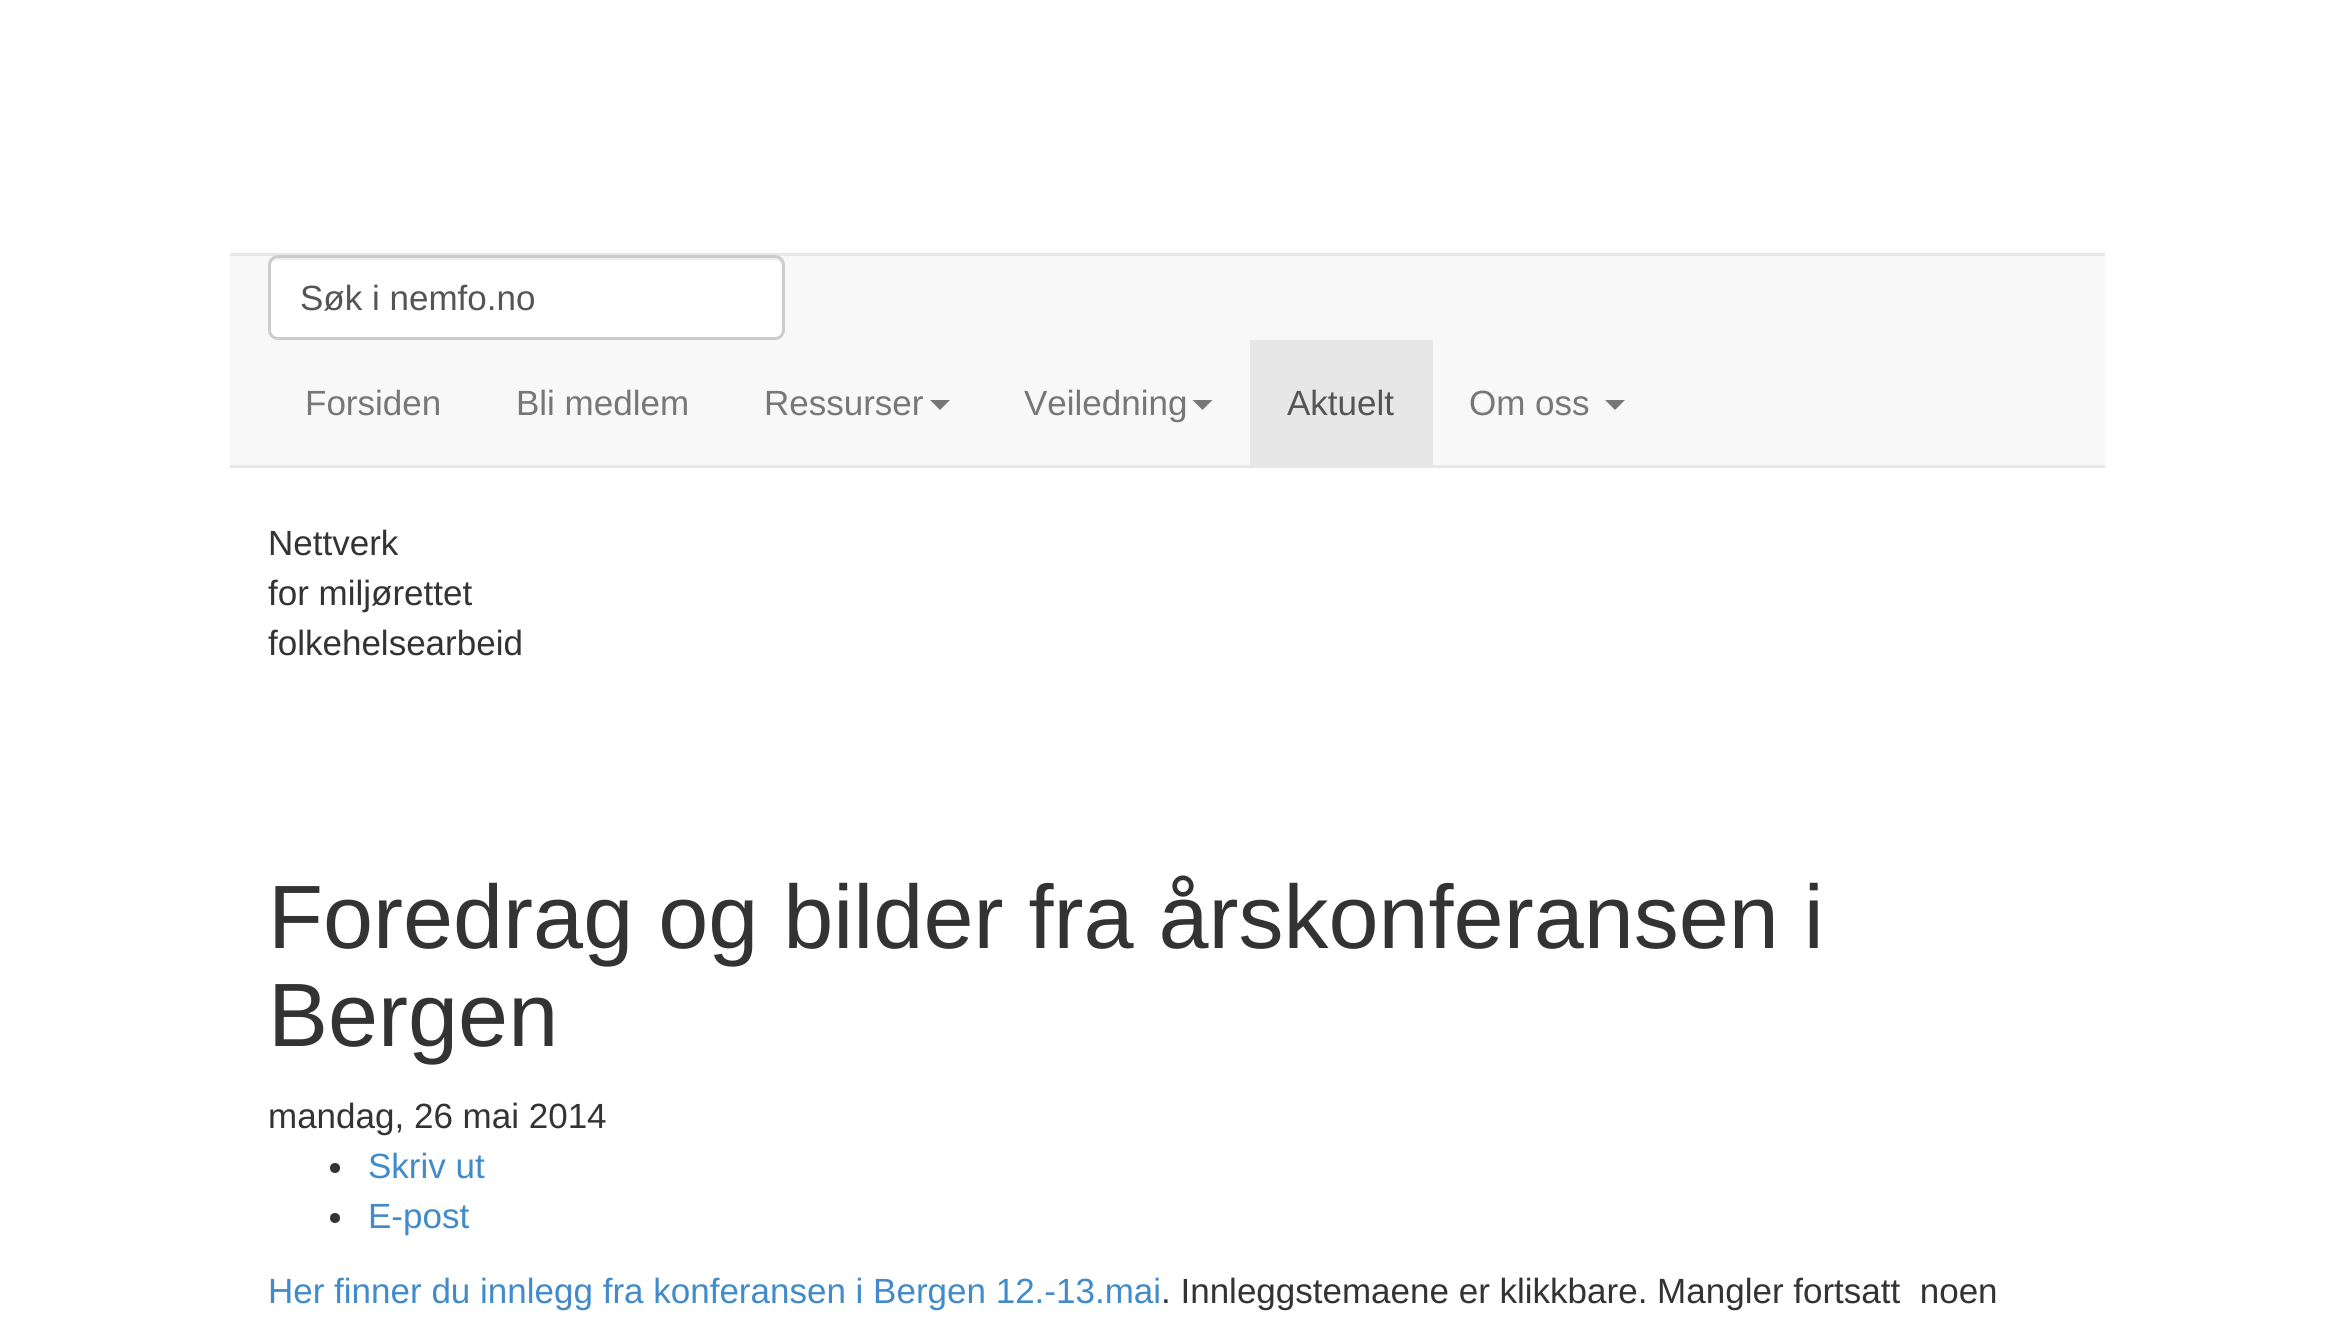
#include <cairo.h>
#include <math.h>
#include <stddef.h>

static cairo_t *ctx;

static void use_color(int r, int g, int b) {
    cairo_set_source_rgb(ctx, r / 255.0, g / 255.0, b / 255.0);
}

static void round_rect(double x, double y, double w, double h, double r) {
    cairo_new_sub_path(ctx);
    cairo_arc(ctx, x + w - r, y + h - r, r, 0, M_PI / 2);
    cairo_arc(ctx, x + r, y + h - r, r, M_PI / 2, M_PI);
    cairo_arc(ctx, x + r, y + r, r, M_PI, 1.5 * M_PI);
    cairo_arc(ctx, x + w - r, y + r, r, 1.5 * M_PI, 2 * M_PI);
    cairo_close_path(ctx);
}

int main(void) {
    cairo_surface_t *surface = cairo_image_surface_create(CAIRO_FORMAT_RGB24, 2335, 1330);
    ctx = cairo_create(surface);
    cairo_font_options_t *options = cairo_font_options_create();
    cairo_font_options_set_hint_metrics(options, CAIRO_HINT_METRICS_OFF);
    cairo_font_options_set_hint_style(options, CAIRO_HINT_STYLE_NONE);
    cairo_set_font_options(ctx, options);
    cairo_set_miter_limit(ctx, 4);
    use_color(255, 255, 255);
    cairo_paint(ctx);
    use_color(248, 248, 248);
    cairo_rectangle(ctx, 230, 256, 1875, 209);
    cairo_fill(ctx);
    use_color(231, 231, 231);
    cairo_rectangle(ctx, 230, 253, 1875, 3);
    cairo_fill(ctx);
    cairo_rectangle(ctx, 230, 465, 1875, 3);
    cairo_fill(ctx);
    use_color(255, 255, 255);
    round_rect(268, 255, 517, 85, 10);
    cairo_fill(ctx);
    use_color(236, 236, 236);
    cairo_new_path(ctx);
    cairo_move_to(ctx, 278, 260);
    cairo_line_to(ctx, 775, 260);
    cairo_curve_to(ctx, 779, 260, 782, 263, 782, 268);
    cairo_line_to(ctx, 782, 334);
    cairo_curve_to(ctx, 783, 333, 783, 332, 783, 330);
    cairo_line_to(ctx, 783, 266);
    cairo_curve_to(ctx, 783, 262, 779, 258, 775, 258);
    cairo_line_to(ctx, 278, 258);
    cairo_curve_to(ctx, 274, 258, 270, 262, 270, 266);
    cairo_line_to(ctx, 270, 268);
    cairo_curve_to(ctx, 270, 263, 273, 260, 278, 260);
    cairo_close_path(ctx);
    cairo_fill(ctx);
    round_rect(269.5, 256.5, 514, 82, 8.5);
    use_color(204, 204, 204);
    cairo_set_line_width(ctx, 3);
    cairo_stroke(ctx);
    cairo_select_font_face(ctx, "Liberation Sans", CAIRO_FONT_SLANT_NORMAL, CAIRO_FONT_WEIGHT_NORMAL);
    cairo_set_font_size(ctx, 35);
    use_color(85, 85, 85);
    cairo_move_to(ctx, 300, 310);
    cairo_show_text(ctx, "Søk i nemfo.no");
    use_color(119, 119, 119);
    cairo_move_to(ctx, 305, 415);
    cairo_show_text(ctx, "Forsiden");
    cairo_move_to(ctx, 516, 415);
    cairo_show_text(ctx, "Bli medlem");
    cairo_move_to(ctx, 764, 415);
    cairo_show_text(ctx, "Ressurser");
    cairo_new_path(ctx);
    cairo_move_to(ctx, 930, 400);
    cairo_line_to(ctx, 950, 400);
    cairo_line_to(ctx, 940, 410);
    cairo_close_path(ctx);
    cairo_fill(ctx);
    cairo_move_to(ctx, 1024, 415);
    cairo_show_text(ctx, "Veiledning");
    cairo_new_path(ctx);
    cairo_move_to(ctx, 1192.5, 400);
    cairo_line_to(ctx, 1212.5, 400);
    cairo_line_to(ctx, 1202.5, 410);
    cairo_close_path(ctx);
    cairo_fill(ctx);
    use_color(231, 231, 231);
    cairo_rectangle(ctx, 1250, 340, 183, 125);
    cairo_fill(ctx);
    use_color(85, 85, 85);
    cairo_move_to(ctx, 1287, 415);
    cairo_show_text(ctx, "Aktuelt");
    use_color(119, 119, 119);
    cairo_move_to(ctx, 1469, 415);
    cairo_show_text(ctx, "Om oss");
    cairo_new_path(ctx);
    cairo_move_to(ctx, 1605, 400);
    cairo_line_to(ctx, 1625, 400);
    cairo_line_to(ctx, 1615, 410);
    cairo_close_path(ctx);
    cairo_fill(ctx);
    use_color(51, 51, 51);
    cairo_move_to(ctx, 268, 555);
    cairo_show_text(ctx, "Nettverk");
    cairo_move_to(ctx, 268, 605);
    cairo_show_text(ctx, "for miljørettet");
    cairo_move_to(ctx, 268, 655);
    cairo_show_text(ctx, "folkehelsearbeid");
    cairo_set_font_size(ctx, 90);
    cairo_move_to(ctx, 268, 948);
    cairo_show_text(ctx, "Foredrag og bilder fra årskonferansen i");
    cairo_move_to(ctx, 268, 1046);
    cairo_show_text(ctx, "Bergen");
    cairo_set_font_size(ctx, 35);
    cairo_move_to(ctx, 268, 1128);
    cairo_show_text(ctx, "mandag, 26 mai 2014");
    cairo_new_path(ctx);
    cairo_arc(ctx, 335, 1168, 5, 0, 2 * M_PI);
    cairo_fill(ctx);
    use_color(66, 139, 202);
    cairo_move_to(ctx, 368, 1178);
    cairo_show_text(ctx, "Skriv ut");
    use_color(51, 51, 51);
    cairo_new_path(ctx);
    cairo_arc(ctx, 335, 1218, 5, 0, 2 * M_PI);
    cairo_fill(ctx);
    use_color(66, 139, 202);
    cairo_move_to(ctx, 368, 1228);
    cairo_show_text(ctx, "E-post");
    cairo_move_to(ctx, 268, 1303);
    cairo_show_text(ctx, "Her finner du innlegg fra konferansen i Bergen 12.-13.mai");
    use_color(51, 51, 51);
    cairo_move_to(ctx, 1161, 1303);
    cairo_show_text(ctx, ". Innleggstemaene er klikkbare. Mangler fortsatt  noen");
    cairo_surface_write_to_png(surface, "result.png");
    cairo_font_options_destroy(options);
    cairo_destroy(ctx);
    cairo_surface_destroy(surface);
    return 0;
}
